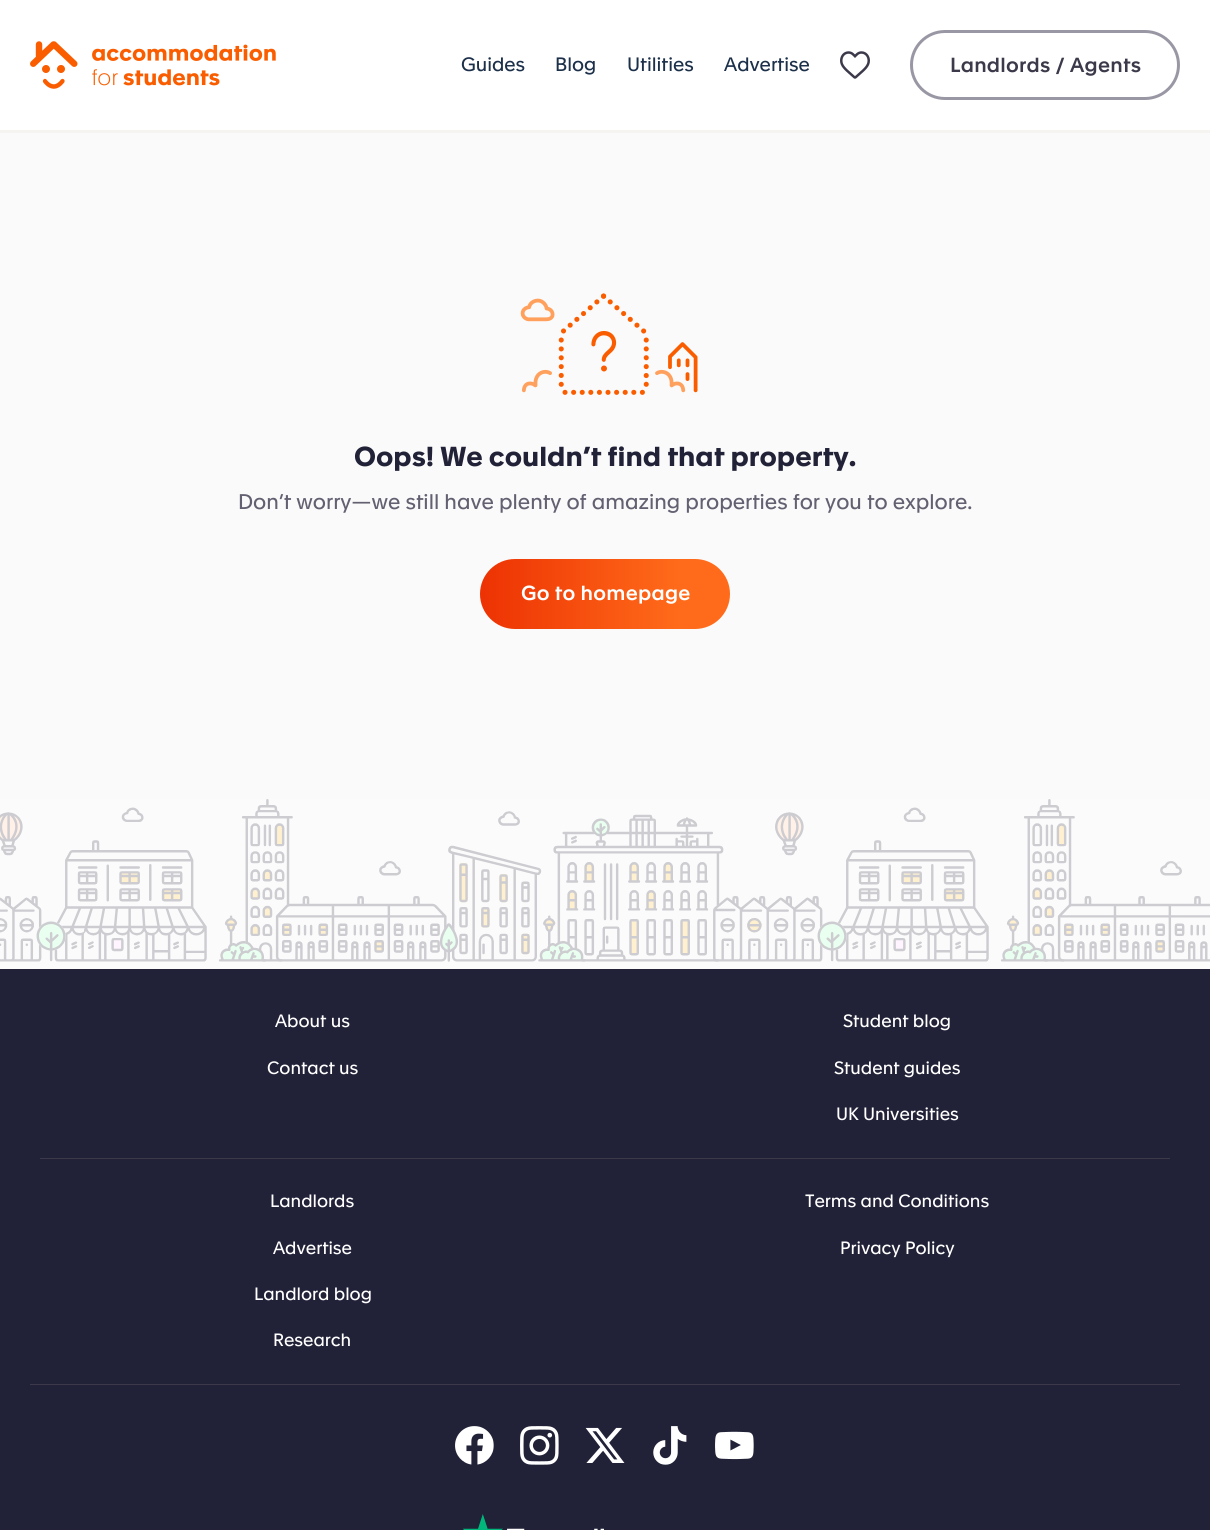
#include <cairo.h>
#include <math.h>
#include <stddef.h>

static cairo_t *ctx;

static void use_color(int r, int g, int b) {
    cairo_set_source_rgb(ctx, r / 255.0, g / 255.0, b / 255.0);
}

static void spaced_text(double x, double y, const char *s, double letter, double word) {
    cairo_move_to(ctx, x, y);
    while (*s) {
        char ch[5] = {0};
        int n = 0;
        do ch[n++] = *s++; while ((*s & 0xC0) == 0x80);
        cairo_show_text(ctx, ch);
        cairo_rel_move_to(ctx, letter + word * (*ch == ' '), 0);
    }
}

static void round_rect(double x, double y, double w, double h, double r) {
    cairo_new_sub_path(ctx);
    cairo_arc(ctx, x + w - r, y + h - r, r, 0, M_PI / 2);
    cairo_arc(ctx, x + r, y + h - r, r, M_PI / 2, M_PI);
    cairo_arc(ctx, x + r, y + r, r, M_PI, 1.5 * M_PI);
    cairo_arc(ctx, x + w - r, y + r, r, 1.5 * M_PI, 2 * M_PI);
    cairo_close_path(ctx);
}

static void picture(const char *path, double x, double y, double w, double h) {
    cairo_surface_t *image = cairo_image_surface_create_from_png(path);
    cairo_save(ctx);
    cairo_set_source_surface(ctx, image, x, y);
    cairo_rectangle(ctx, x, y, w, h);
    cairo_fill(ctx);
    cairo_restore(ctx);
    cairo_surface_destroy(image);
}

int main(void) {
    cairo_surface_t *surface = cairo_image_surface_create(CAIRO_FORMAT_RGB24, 1210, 1530);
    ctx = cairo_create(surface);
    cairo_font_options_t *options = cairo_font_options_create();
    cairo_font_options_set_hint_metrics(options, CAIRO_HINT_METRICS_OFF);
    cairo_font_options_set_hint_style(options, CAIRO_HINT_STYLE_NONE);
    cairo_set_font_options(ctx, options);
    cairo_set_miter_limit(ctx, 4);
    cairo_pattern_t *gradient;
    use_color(255, 255, 255);
    cairo_paint(ctx);
    picture("img1.png", 30, 41, 246, 48);
    cairo_select_font_face(ctx, "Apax", CAIRO_FONT_SLANT_NORMAL, CAIRO_FONT_WEIGHT_NORMAL);
    cairo_set_font_size(ctx, 19);
    use_color(28, 48, 74);
    cairo_move_to(ctx, 461, 71);
    cairo_show_text(ctx, "Guides");
    cairo_move_to(ctx, 555, 71);
    cairo_show_text(ctx, "Blog");
    cairo_move_to(ctx, 627, 71);
    cairo_show_text(ctx, "Utilities");
    cairo_move_to(ctx, 724, 71);
    cairo_show_text(ctx, "Advertise");
    picture("img2.png", 840, 51, 30, 28);
    round_rect(911.5, 31.5, 267, 67, 33.5);
    use_color(153, 151, 163);
    cairo_set_line_width(ctx, 3);
    cairo_stroke(ctx);
    cairo_select_font_face(ctx, "Apax Medium", CAIRO_FONT_SLANT_NORMAL, CAIRO_FONT_WEIGHT_NORMAL);
    cairo_set_font_size(ctx, 20);
    use_color(60, 58, 74);
    spaced_text(950, 72, "Landlords / Agents", 0.25, 0);
    use_color(250, 250, 250);
    cairo_rectangle(ctx, 0, 133, 1210, 666);
    cairo_fill(ctx);
    use_color(246, 244, 241);
    cairo_rectangle(ctx, 0, 130, 1210, 3);
    cairo_fill(ctx);
    picture("img3.png", 520, 293, 178, 102);
    cairo_select_font_face(ctx, "Apax", CAIRO_FONT_SLANT_NORMAL, CAIRO_FONT_WEIGHT_BOLD);
    cairo_set_font_size(ctx, 26.9);
    use_color(33, 33, 56);
    cairo_move_to(ctx, 354, 466);
    cairo_show_text(ctx, "Oops! We couldn’t find that property.");
    cairo_select_font_face(ctx, "Apax", CAIRO_FONT_SLANT_NORMAL, CAIRO_FONT_WEIGHT_NORMAL);
    cairo_set_font_size(ctx, 20.8);
    use_color(99, 97, 113);
    cairo_move_to(ctx, 238, 509);
    cairo_show_text(ctx, "Don’t worry—we still have plenty of amazing properties for you to explore.");
    gradient = cairo_pattern_create_linear(480, 594, 730, 594);
    cairo_pattern_add_color_stop_rgba(gradient, 0, 0.929, 0.196, 0.012, 1);
    cairo_pattern_add_color_stop_rgba(gradient, 0.8, 1, 0.42, 0.102, 1);
    cairo_set_source(ctx, gradient);
    cairo_pattern_destroy(gradient);
    round_rect(480, 559, 250, 70, 35);
    cairo_fill(ctx);
    cairo_select_font_face(ctx, "Apax Medium", CAIRO_FONT_SLANT_NORMAL, CAIRO_FONT_WEIGHT_NORMAL);
    cairo_set_font_size(ctx, 20);
    use_color(255, 255, 255);
    spaced_text(521, 600, "Go to homepage", 0.25, 0);
    use_color(33, 33, 56);
    cairo_rectangle(ctx, 0, 969, 1210, 561);
    cairo_fill(ctx);
    use_color(251, 251, 251);
    cairo_rectangle(ctx, 0, 799, 1210, 170);
    cairo_fill(ctx);
    picture("img4.png", 0, 799, 1210, 163);
    cairo_select_font_face(ctx, "Apax", CAIRO_FONT_SLANT_NORMAL, CAIRO_FONT_WEIGHT_NORMAL);
    cairo_set_font_size(ctx, 17.5);
    use_color(255, 255, 255);
    cairo_move_to(ctx, 275, 1027);
    cairo_show_text(ctx, "About us");
    cairo_move_to(ctx, 843, 1027);
    cairo_show_text(ctx, "Student blog");
    cairo_move_to(ctx, 267, 1074);
    cairo_show_text(ctx, "Contact us");
    cairo_move_to(ctx, 834, 1074);
    cairo_show_text(ctx, "Student guides");
    cairo_move_to(ctx, 836, 1120);
    cairo_show_text(ctx, "UK Universities");
    use_color(60, 58, 74);
    cairo_rectangle(ctx, 40, 1158, 1130, 1);
    cairo_fill(ctx);
    use_color(255, 255, 255);
    cairo_move_to(ctx, 270, 1207);
    cairo_show_text(ctx, "Landlords");
    cairo_move_to(ctx, 805, 1207);
    cairo_show_text(ctx, "Terms and Conditions");
    cairo_move_to(ctx, 273, 1254);
    cairo_show_text(ctx, "Advertise");
    cairo_move_to(ctx, 840, 1254);
    cairo_show_text(ctx, "Privacy Policy");
    cairo_move_to(ctx, 254, 1300);
    cairo_show_text(ctx, "Landlord blog");
    cairo_move_to(ctx, 273, 1346);
    cairo_show_text(ctx, "Research");
    use_color(60, 58, 74);
    cairo_rectangle(ctx, 30, 1384, 1150, 1);
    cairo_fill(ctx);
    picture("img5.png", 455, 1426, 39, 39);
    picture("img6.png", 520, 1426, 39, 39);
    picture("img7.png", 585, 1427, 40, 36);
    picture("img8.png", 653, 1426, 34, 39);
    picture("img9.png", 715, 1431, 39, 29);
    picture("img10.png", 462, 1514, 142, 16);
    cairo_surface_write_to_png(surface, "result.png");
    cairo_font_options_destroy(options);
    cairo_destroy(ctx);
    cairo_surface_destroy(surface);
    return 0;
}
